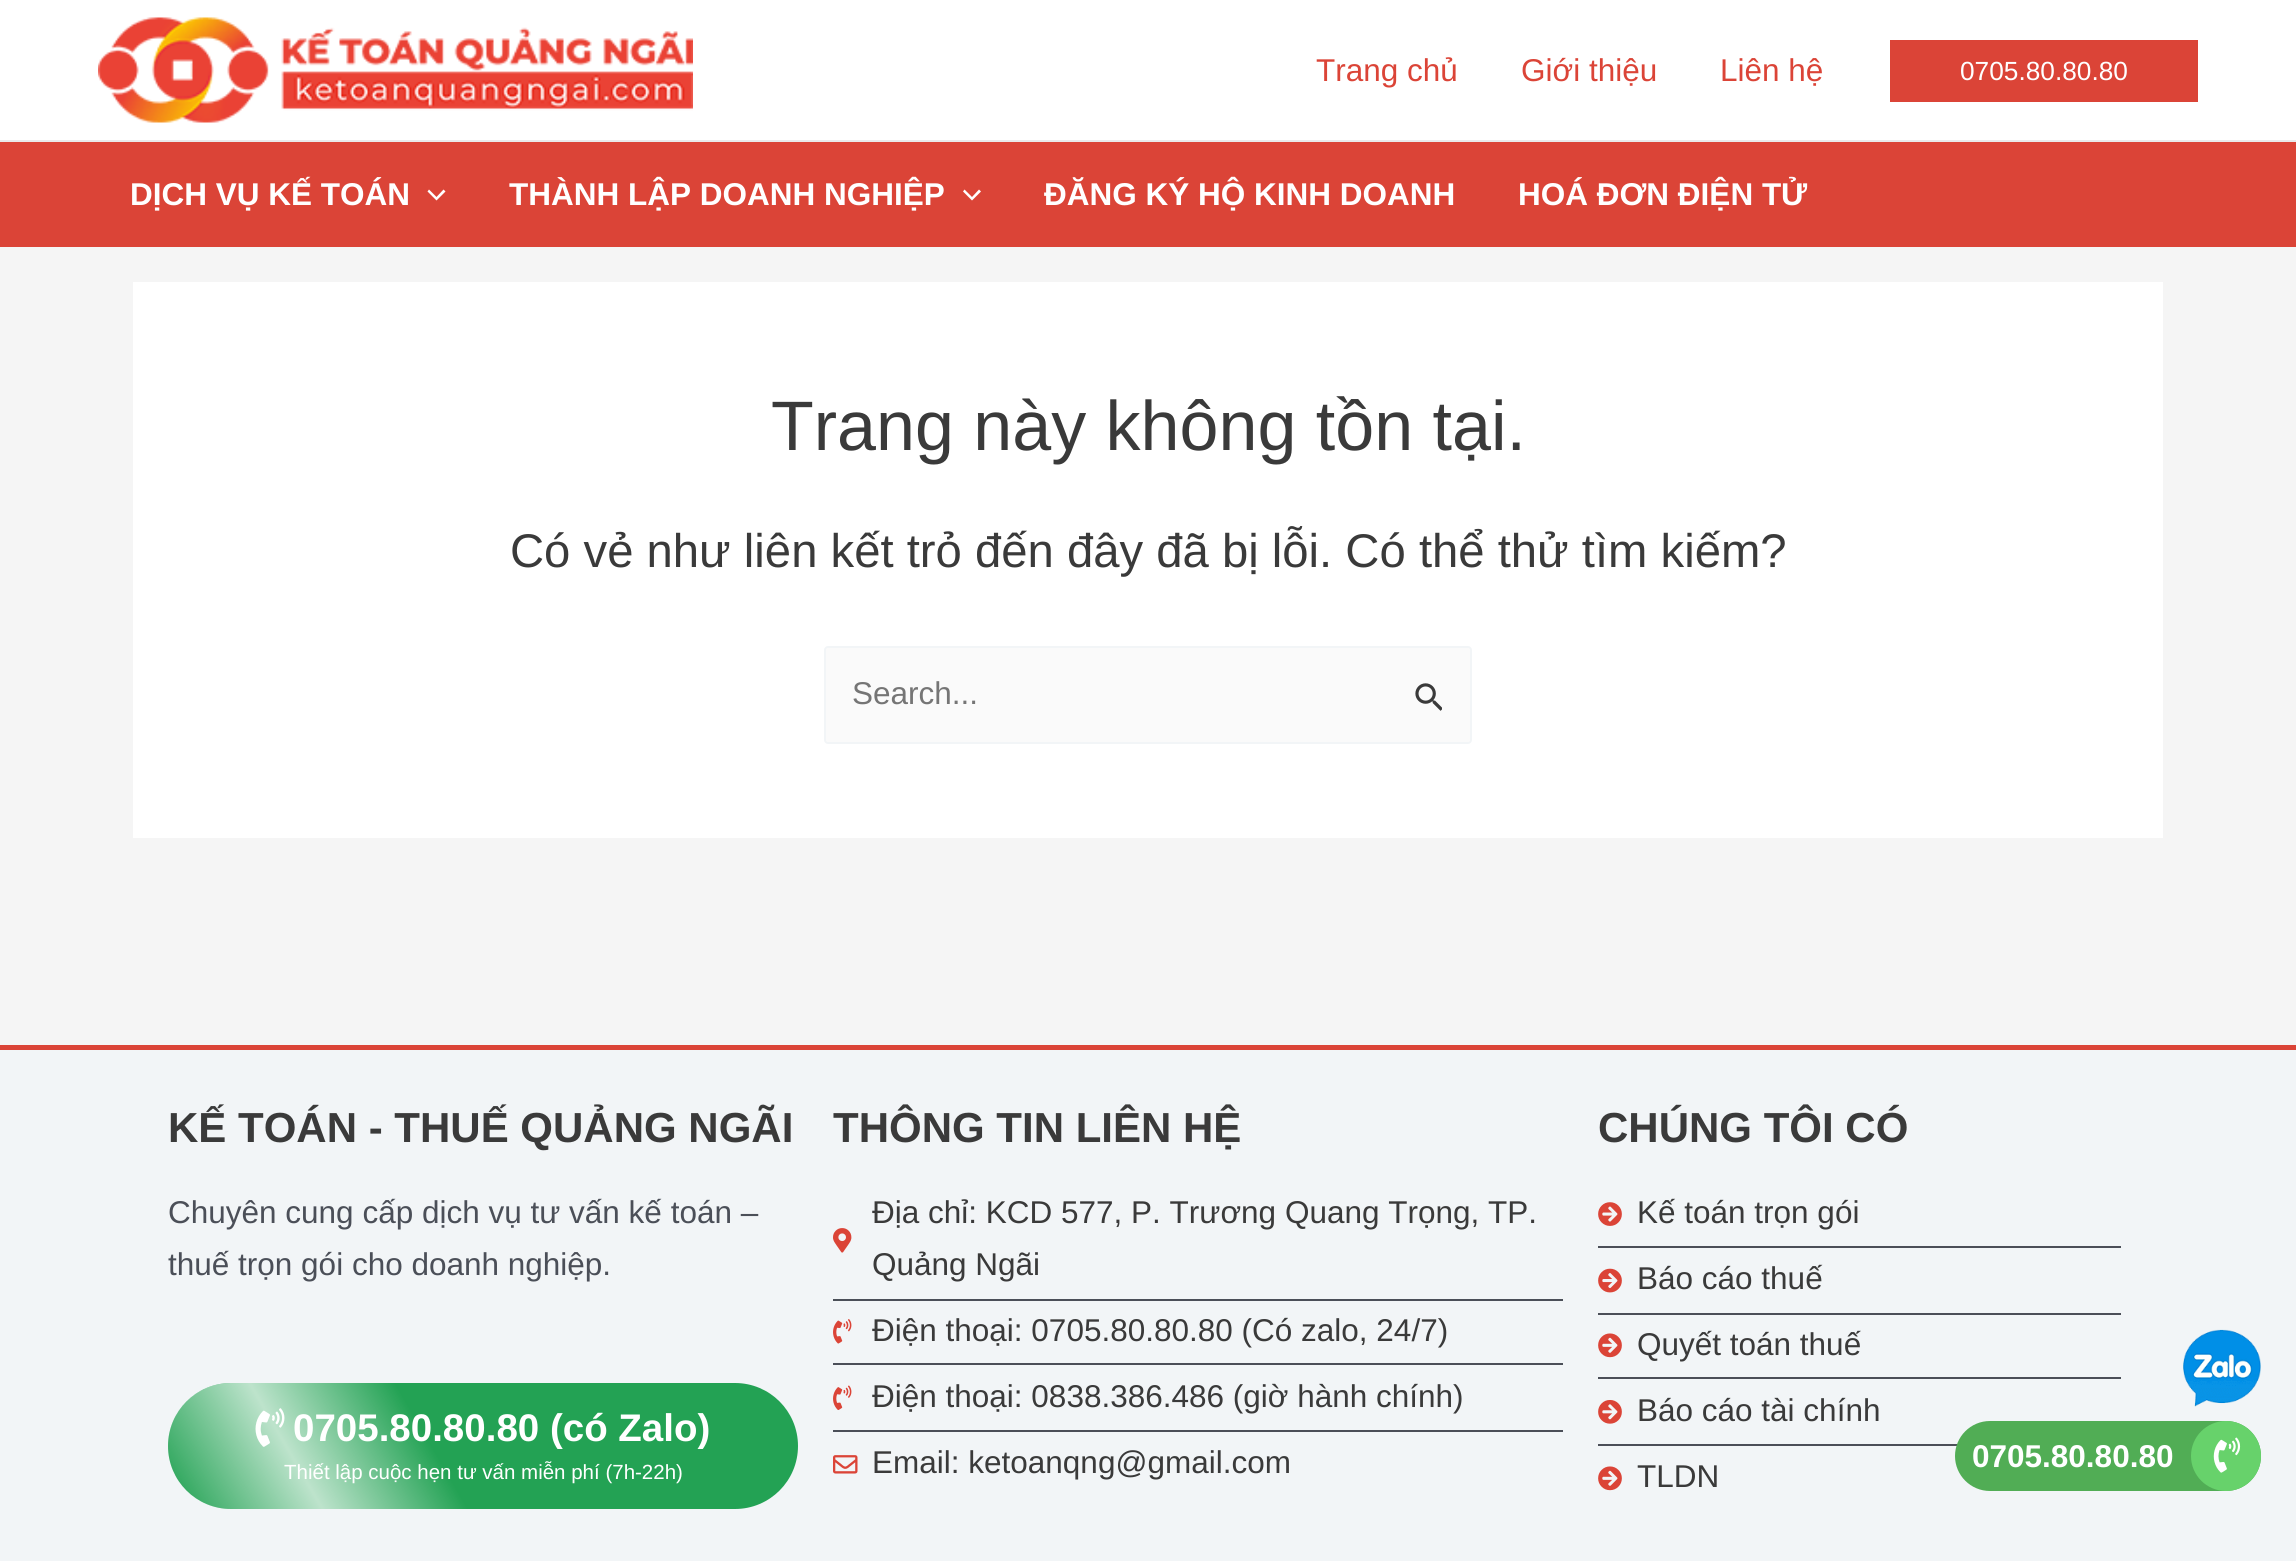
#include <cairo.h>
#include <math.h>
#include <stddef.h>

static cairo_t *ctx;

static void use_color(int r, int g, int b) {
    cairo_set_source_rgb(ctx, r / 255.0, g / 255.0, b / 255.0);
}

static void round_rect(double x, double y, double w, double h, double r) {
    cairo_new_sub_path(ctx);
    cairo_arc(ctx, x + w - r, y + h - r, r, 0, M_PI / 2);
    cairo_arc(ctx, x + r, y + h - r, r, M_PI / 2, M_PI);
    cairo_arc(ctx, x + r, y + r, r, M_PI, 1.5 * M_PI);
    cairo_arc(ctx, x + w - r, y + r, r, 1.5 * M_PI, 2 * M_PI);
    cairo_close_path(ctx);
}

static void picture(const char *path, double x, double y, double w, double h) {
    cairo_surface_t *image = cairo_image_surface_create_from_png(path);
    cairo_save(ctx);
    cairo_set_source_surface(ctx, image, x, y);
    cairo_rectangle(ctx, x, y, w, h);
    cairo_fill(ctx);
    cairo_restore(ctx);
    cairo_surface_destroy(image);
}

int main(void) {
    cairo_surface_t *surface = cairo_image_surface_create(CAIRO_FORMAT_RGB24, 2296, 1561);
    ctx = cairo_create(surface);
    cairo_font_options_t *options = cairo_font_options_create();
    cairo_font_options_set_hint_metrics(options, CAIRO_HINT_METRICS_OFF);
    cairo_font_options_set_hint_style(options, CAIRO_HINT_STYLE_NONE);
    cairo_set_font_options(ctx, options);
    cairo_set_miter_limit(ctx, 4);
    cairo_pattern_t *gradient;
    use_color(245, 245, 245);
    cairo_paint(ctx);
    use_color(255, 255, 255);
    cairo_rectangle(ctx, 0, 0, 2296, 140);
    cairo_fill(ctx);
    use_color(234, 234, 234);
    cairo_rectangle(ctx, 0, 140, 2296, 2);
    cairo_fill(ctx);
    picture("img1.png", 98, 17, 595, 106);
    cairo_select_font_face(ctx, "Liberation Sans", CAIRO_FONT_SLANT_NORMAL, CAIRO_FONT_WEIGHT_NORMAL);
    cairo_set_font_size(ctx, 31.5);
    use_color(219, 68, 55);
    cairo_move_to(ctx, 1316, 81);
    cairo_show_text(ctx, "Trang chủ");
    cairo_move_to(ctx, 1521, 81);
    cairo_show_text(ctx, "Giới thiệu");
    cairo_move_to(ctx, 1720, 81);
    cairo_show_text(ctx, "Liên hệ");
    cairo_rectangle(ctx, 1890, 40, 308, 62);
    cairo_fill(ctx);
    cairo_set_font_size(ctx, 26.25);
    use_color(255, 255, 255);
    cairo_move_to(ctx, 1960, 80);
    cairo_show_text(ctx, "0705.80.80.80");
    use_color(219, 68, 55);
    cairo_rectangle(ctx, 0, 142, 2296, 105);
    cairo_fill(ctx);
    cairo_select_font_face(ctx, "Liberation Sans", CAIRO_FONT_SLANT_NORMAL, CAIRO_FONT_WEIGHT_BOLD);
    cairo_set_font_size(ctx, 31.5);
    use_color(255, 255, 255);
    cairo_move_to(ctx, 130, 205);
    cairo_show_text(ctx, "DỊCH VỤ KẾ TOÁN");
    cairo_new_path(ctx);
    cairo_move_to(ctx, 427.5, 191.5);
    cairo_line_to(ctx, 436.5, 200.5);
    cairo_line_to(ctx, 445.5, 191.5);
    cairo_line_to(ctx, 443.5, 189.5);
    cairo_line_to(ctx, 436.5, 197);
    cairo_line_to(ctx, 429, 189.5);
    cairo_close_path(ctx);
    cairo_fill(ctx);
    cairo_move_to(ctx, 509, 205);
    cairo_show_text(ctx, "THÀNH LẬP DOANH NGHIỆP");
    cairo_new_path(ctx);
    cairo_move_to(ctx, 963, 191.5);
    cairo_line_to(ctx, 972, 200.5);
    cairo_line_to(ctx, 981, 191.5);
    cairo_line_to(ctx, 979, 189.5);
    cairo_line_to(ctx, 972, 197);
    cairo_line_to(ctx, 964.5, 189.5);
    cairo_close_path(ctx);
    cairo_fill(ctx);
    cairo_move_to(ctx, 1044, 205);
    cairo_show_text(ctx, "ĐĂNG KÝ HỘ KINH DOANH");
    cairo_move_to(ctx, 1518, 205);
    cairo_show_text(ctx, "HOÁ ĐƠN ĐIỆN TỬ");
    cairo_rectangle(ctx, 133, 282, 2030, 556);
    cairo_fill(ctx);
    cairo_select_font_face(ctx, "Liberation Sans", CAIRO_FONT_SLANT_NORMAL, CAIRO_FONT_WEIGHT_NORMAL);
    cairo_set_font_size(ctx, 70);
    use_color(58, 58, 58);
    cairo_move_to(ctx, 771, 450);
    cairo_show_text(ctx, "Trang này không tồn tại.");
    cairo_set_font_size(ctx, 47.25);
    cairo_move_to(ctx, 510, 567);
    cairo_show_text(ctx, "Có vẻ như liên kết trỏ đến đây đã bị lỗi. Có thể thử tìm kiếm?");
    use_color(250, 250, 250);
    round_rect(825, 647, 646, 96, 3);
    cairo_fill_preserve(ctx);
    use_color(242, 245, 247);
    cairo_stroke(ctx);
    cairo_set_font_size(ctx, 31.5);
    use_color(117, 117, 117);
    cairo_move_to(ctx, 852, 704);
    cairo_show_text(ctx, "Search...");
    picture("img2.png", 1415, 683, 27, 28);
    use_color(242, 245, 247);
    cairo_rectangle(ctx, 0, 1050, 2296, 511);
    cairo_fill(ctx);
    use_color(219, 68, 55);
    cairo_rectangle(ctx, 0, 1045, 2296, 5);
    cairo_fill(ctx);
    cairo_select_font_face(ctx, "Liberation Sans", CAIRO_FONT_SLANT_NORMAL, CAIRO_FONT_WEIGHT_BOLD);
    cairo_set_font_size(ctx, 42);
    use_color(58, 58, 58);
    cairo_move_to(ctx, 168, 1142);
    cairo_show_text(ctx, "KẾ TOÁN - THUẾ QUẢNG NGÃI");
    cairo_select_font_face(ctx, "Liberation Sans", CAIRO_FONT_SLANT_NORMAL, CAIRO_FONT_WEIGHT_NORMAL);
    cairo_set_font_size(ctx, 31.5);
    use_color(75, 79, 88);
    cairo_move_to(ctx, 168, 1223);
    cairo_show_text(ctx, "Chuyên cung cấp dịch vụ tư vấn kế toán –");
    cairo_move_to(ctx, 168, 1275);
    cairo_show_text(ctx, "thuế trọn gói cho doanh nghiệp.");
    use_color(35, 162, 84);
    round_rect(168, 1383, 630, 126, 63);
    cairo_fill(ctx);
    gradient = cairo_pattern_create_linear(387, 1369, 169, 1495);
    cairo_pattern_add_color_stop_rgba(gradient, 0, 1, 1, 1, 0);
    cairo_pattern_add_color_stop_rgba(gradient, 0.5, 1, 1, 1, 0.7);
    cairo_pattern_add_color_stop_rgba(gradient, 1, 1, 1, 1, 0);
    cairo_set_source(ctx, gradient);
    cairo_pattern_destroy(gradient);
    cairo_new_path(ctx);
    cairo_move_to(ctx, 231, 1383);
    cairo_line_to(ctx, 395, 1383);
    cairo_line_to(ctx, 468, 1509);
    cairo_line_to(ctx, 231, 1509);
    cairo_curve_to(ctx, 196, 1509, 168, 1481, 168, 1446);
    cairo_curve_to(ctx, 168, 1411, 196, 1383, 231, 1383);
    cairo_close_path(ctx);
    cairo_fill(ctx);
    picture("img3.png", 255, 1408, 30, 39);
    cairo_select_font_face(ctx, "Liberation Sans", CAIRO_FONT_SLANT_NORMAL, CAIRO_FONT_WEIGHT_BOLD);
    cairo_set_font_size(ctx, 38.5);
    use_color(255, 255, 255);
    cairo_move_to(ctx, 293, 1441);
    cairo_show_text(ctx, "0705.80.80.80 (có Zalo)");
    cairo_select_font_face(ctx, "Liberation Sans", CAIRO_FONT_SLANT_NORMAL, CAIRO_FONT_WEIGHT_NORMAL);
    cairo_set_font_size(ctx, 20.5);
    cairo_move_to(ctx, 284, 1479);
    cairo_show_text(ctx, "Thiết lập cuộc hẹn tư vấn miễn phí (7h-22h)");
    cairo_select_font_face(ctx, "Liberation Sans", CAIRO_FONT_SLANT_NORMAL, CAIRO_FONT_WEIGHT_BOLD);
    cairo_set_font_size(ctx, 42);
    use_color(58, 58, 58);
    cairo_move_to(ctx, 833, 1142);
    cairo_show_text(ctx, "THÔNG TIN LIÊN HỆ");
    picture("img4.png", 833, 1228, 19, 25);
    cairo_select_font_face(ctx, "Liberation Sans", CAIRO_FONT_SLANT_NORMAL, CAIRO_FONT_WEIGHT_NORMAL);
    cairo_set_font_size(ctx, 31.5);
    cairo_move_to(ctx, 872, 1223);
    cairo_show_text(ctx, "Địa chỉ: KCD 577, P. Trương Quang Trọng, TP.");
    cairo_move_to(ctx, 872, 1275);
    cairo_show_text(ctx, "Quảng Ngãi");
    use_color(75, 79, 88);
    cairo_rectangle(ctx, 833, 1299, 730, 2);
    cairo_fill(ctx);
    picture("img5.png", 833, 1319, 19, 25);
    use_color(58, 58, 58);
    cairo_move_to(ctx, 872, 1341);
    cairo_show_text(ctx, "Điện thoại: 0705.80.80.80 (Có zalo, 24/7)");
    use_color(75, 79, 88);
    cairo_rectangle(ctx, 833, 1363, 730, 2);
    cairo_fill(ctx);
    picture("img6.png", 833, 1385, 19, 25);
    use_color(58, 58, 58);
    cairo_move_to(ctx, 872, 1407);
    cairo_show_text(ctx, "Điện thoại: 0838.386.486 (giờ hành chính)");
    use_color(75, 79, 88);
    cairo_rectangle(ctx, 833, 1430, 730, 2);
    cairo_fill(ctx);
    picture("img7.png", 833, 1455, 25, 19);
    use_color(58, 58, 58);
    cairo_move_to(ctx, 872, 1473);
    cairo_show_text(ctx, "Email: ketoanqng@gmail.com");
    cairo_select_font_face(ctx, "Liberation Sans", CAIRO_FONT_SLANT_NORMAL, CAIRO_FONT_WEIGHT_BOLD);
    cairo_set_font_size(ctx, 42);
    cairo_move_to(ctx, 1598, 1142);
    cairo_show_text(ctx, "CHÚNG TÔI CÓ");
    picture("img8.png", 1598, 1202, 24, 24);
    cairo_select_font_face(ctx, "Liberation Sans", CAIRO_FONT_SLANT_NORMAL, CAIRO_FONT_WEIGHT_NORMAL);
    cairo_set_font_size(ctx, 31.5);
    cairo_move_to(ctx, 1637, 1223);
    cairo_show_text(ctx, "Kế toán trọn gói");
    use_color(75, 79, 88);
    cairo_rectangle(ctx, 1598, 1246, 523, 2);
    cairo_fill(ctx);
    picture("img9.png", 1598, 1268, 24, 25);
    use_color(58, 58, 58);
    cairo_move_to(ctx, 1637, 1289);
    cairo_show_text(ctx, "Báo cáo thuế");
    use_color(75, 79, 88);
    cairo_rectangle(ctx, 1598, 1313, 523, 2);
    cairo_fill(ctx);
    picture("img10.png", 1598, 1333, 24, 25);
    use_color(58, 58, 58);
    cairo_move_to(ctx, 1637, 1355);
    cairo_show_text(ctx, "Quyết toán thuế");
    use_color(75, 79, 88);
    cairo_rectangle(ctx, 1598, 1377, 523, 2);
    cairo_fill(ctx);
    picture("img11.png", 1598, 1400, 24, 24);
    use_color(58, 58, 58);
    cairo_move_to(ctx, 1637, 1421);
    cairo_show_text(ctx, "Báo cáo tài chính");
    use_color(75, 79, 88);
    cairo_rectangle(ctx, 1598, 1444, 360, 2);
    cairo_fill(ctx);
    picture("img10.png", 1598, 1466, 24, 25);
    use_color(58, 58, 58);
    cairo_move_to(ctx, 1637, 1487);
    cairo_show_text(ctx, "TLDN");
    picture("img12.png", 2183, 1329, 78, 78);
    use_color(81, 173, 85);
    round_rect(1955, 1421, 306, 70, 35);
    cairo_fill(ctx);
    cairo_select_font_face(ctx, "Liberation Sans", CAIRO_FONT_SLANT_NORMAL, CAIRO_FONT_WEIGHT_BOLD);
    use_color(255, 255, 255);
    cairo_move_to(ctx, 1972, 1467);
    cairo_show_text(ctx, "0705.80.80.80");
    use_color(103, 210, 107);
    cairo_new_path(ctx);
    cairo_arc(ctx, 2226, 1456, 35, 0, 2 * M_PI);
    cairo_fill(ctx);
    picture("img13.png", 2213, 1437, 28, 36);
    cairo_surface_write_to_png(surface, "result.png");
    cairo_font_options_destroy(options);
    cairo_destroy(ctx);
    cairo_surface_destroy(surface);
    return 0;
}
